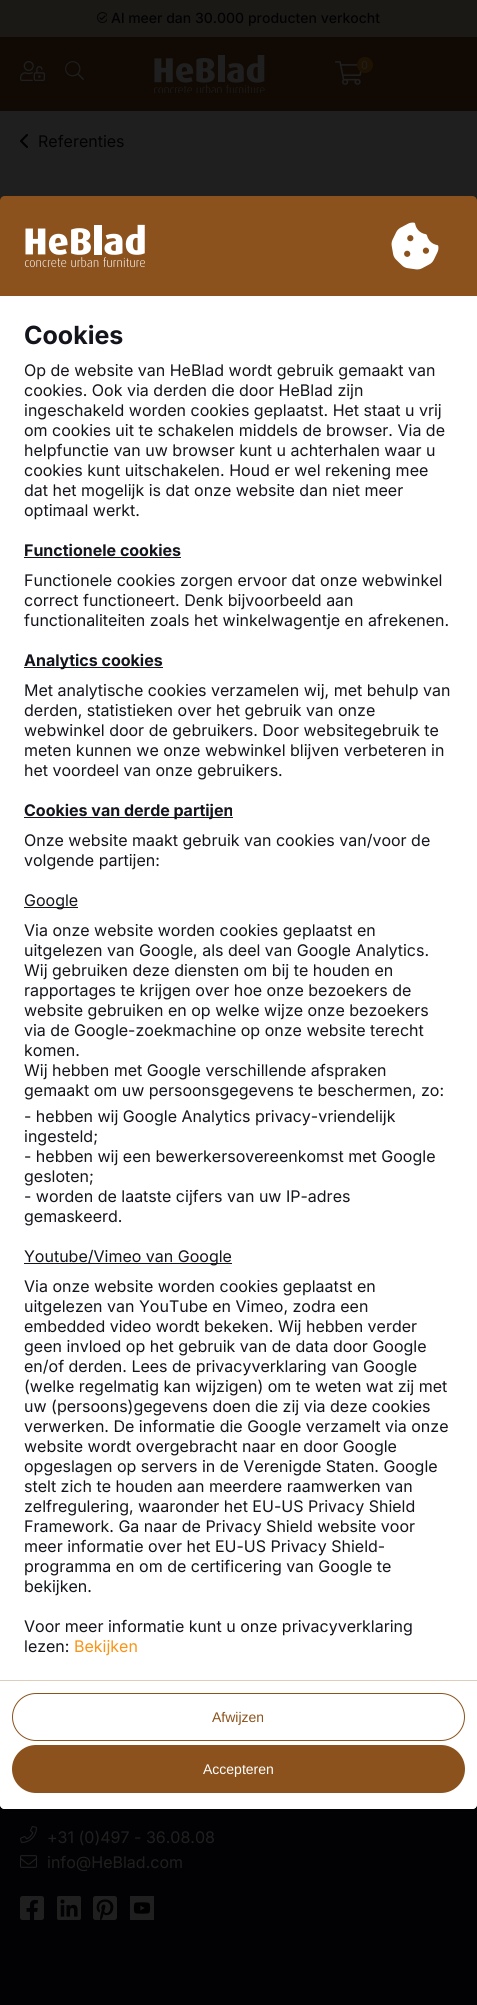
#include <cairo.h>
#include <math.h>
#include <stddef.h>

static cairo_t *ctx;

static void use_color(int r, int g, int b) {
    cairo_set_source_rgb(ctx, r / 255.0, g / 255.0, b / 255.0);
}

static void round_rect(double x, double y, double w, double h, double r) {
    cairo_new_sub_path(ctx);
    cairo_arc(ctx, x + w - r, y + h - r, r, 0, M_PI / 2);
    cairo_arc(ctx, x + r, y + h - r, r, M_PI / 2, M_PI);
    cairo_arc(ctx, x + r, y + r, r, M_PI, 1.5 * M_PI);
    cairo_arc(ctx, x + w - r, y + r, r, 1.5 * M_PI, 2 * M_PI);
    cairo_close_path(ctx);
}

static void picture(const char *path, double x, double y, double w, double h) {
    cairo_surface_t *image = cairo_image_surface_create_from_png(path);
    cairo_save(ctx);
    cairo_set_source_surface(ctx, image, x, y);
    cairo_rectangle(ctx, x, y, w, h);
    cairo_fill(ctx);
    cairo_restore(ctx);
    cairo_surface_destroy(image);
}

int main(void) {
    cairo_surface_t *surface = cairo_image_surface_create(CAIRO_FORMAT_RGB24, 477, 2005);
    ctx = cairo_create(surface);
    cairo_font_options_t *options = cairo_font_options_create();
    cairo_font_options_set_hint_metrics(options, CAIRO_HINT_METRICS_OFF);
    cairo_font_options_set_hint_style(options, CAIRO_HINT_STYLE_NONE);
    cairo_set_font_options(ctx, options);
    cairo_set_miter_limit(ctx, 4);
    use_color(31, 31, 31);
    cairo_paint(ctx);
    use_color(27, 25, 22);
    cairo_rectangle(ctx, 0, 0, 477, 37);
    cairo_fill(ctx);
    picture("img1.png", 97, 12, 10, 11);
    cairo_select_font_face(ctx, "Inter Medium", CAIRO_FONT_SLANT_NORMAL, CAIRO_FONT_WEIGHT_NORMAL);
    cairo_set_font_size(ctx, 14);
    use_color(2, 2, 4);
    cairo_move_to(ctx, 111, 23);
    cairo_show_text(ctx, "Al meer dan 30.000 producten verkocht");
    use_color(17, 10, 4);
    cairo_rectangle(ctx, 0, 37, 477, 74);
    cairo_fill(ctx);
    picture("img2.png", 20, 61, 25, 20);
    picture("img3.png", 65, 61, 19, 19);
    picture("img4.png", 154, 55, 111, 38);
    picture("img5.png", 335, 61, 27, 24);
    use_color(30, 18, 3);
    cairo_arc(ctx, 365, 65, 8, 0, 2 * M_PI);
    cairo_fill(ctx);
    cairo_select_font_face(ctx, "Inter", CAIRO_FONT_SLANT_NORMAL, CAIRO_FONT_WEIGHT_NORMAL);
    cairo_set_font_size(ctx, 11);
    use_color(31, 31, 31);
    cairo_move_to(ctx, 361, 69);
    cairo_show_text(ctx, "0");
    picture("img6.png", 20, 134, 8, 14);
    cairo_set_font_size(ctx, 16);
    use_color(2, 2, 4);
    cairo_move_to(ctx, 38, 147);
    cairo_show_text(ctx, "Referenties");
    use_color(139, 82, 29);
    cairo_new_path(ctx);
    cairo_move_to(ctx, 5, 196);
    cairo_line_to(ctx, 472, 196);
    cairo_curve_to(ctx, 475, 196, 477, 198, 477, 201);
    cairo_line_to(ctx, 477, 296);
    cairo_line_to(ctx, 0, 296);
    cairo_line_to(ctx, 0, 201);
    cairo_curve_to(ctx, 0, 198, 2, 196, 5, 196);
    cairo_close_path(ctx);
    cairo_fill(ctx);
    picture("img7.png", 25, 224, 120, 44);
    picture("img8.png", 391, 222, 48, 48);
    use_color(2, 2, 4);
    cairo_rectangle(ctx, 0, 1804, 477, 201);
    cairo_fill(ctx);
    use_color(255, 255, 255);
    cairo_new_path(ctx);
    cairo_move_to(ctx, 0, 296);
    cairo_line_to(ctx, 477, 296);
    cairo_line_to(ctx, 477, 1804);
    cairo_curve_to(ctx, 477, 1807, 475, 1809, 472, 1809);
    cairo_line_to(ctx, 5, 1809);
    cairo_curve_to(ctx, 2, 1809, 0, 1807, 0, 1804);
    cairo_close_path(ctx);
    cairo_fill(ctx);
    cairo_select_font_face(ctx, "Inter", CAIRO_FONT_SLANT_NORMAL, CAIRO_FONT_WEIGHT_BOLD);
    cairo_set_font_size(ctx, 25);
    use_color(20, 21, 28);
    cairo_move_to(ctx, 24, 344);
    cairo_show_text(ctx, "Cookies");
    cairo_select_font_face(ctx, "Inter", CAIRO_FONT_SLANT_NORMAL, CAIRO_FONT_WEIGHT_NORMAL);
    cairo_set_font_size(ctx, 16);
    cairo_move_to(ctx, 24, 376);
    cairo_show_text(ctx, "Op de website van HeBlad wordt gebruik gemaakt van");
    cairo_move_to(ctx, 24, 396);
    cairo_show_text(ctx, "cookies. Ook via derden die door HeBlad zijn");
    cairo_move_to(ctx, 24, 416);
    cairo_show_text(ctx, "ingeschakeld worden cookies geplaatst. Het staat u vrij");
    cairo_move_to(ctx, 24, 436);
    cairo_show_text(ctx, "om cookies uit te schakelen middels de browser. Via de");
    cairo_move_to(ctx, 24, 456);
    cairo_show_text(ctx, "helpfunctie van uw browser kunt u achterhalen waar u");
    cairo_move_to(ctx, 24, 476);
    cairo_show_text(ctx, "cookies kunt uitschakelen. Houd er wel rekening mee");
    cairo_move_to(ctx, 24, 496);
    cairo_show_text(ctx, "dat het mogelijk is dat onze website dan niet meer");
    cairo_move_to(ctx, 24, 516);
    cairo_show_text(ctx, "optimaal werkt.");
    cairo_select_font_face(ctx, "Inter", CAIRO_FONT_SLANT_NORMAL, CAIRO_FONT_WEIGHT_BOLD);
    cairo_move_to(ctx, 24, 556);
    cairo_show_text(ctx, "Functionele cookies");
    cairo_rectangle(ctx, 24, 557, 157, 1);
    cairo_fill(ctx);
    cairo_select_font_face(ctx, "Inter", CAIRO_FONT_SLANT_NORMAL, CAIRO_FONT_WEIGHT_NORMAL);
    cairo_move_to(ctx, 24, 586);
    cairo_show_text(ctx, "Functionele cookies zorgen ervoor dat onze webwinkel");
    cairo_move_to(ctx, 24, 606);
    cairo_show_text(ctx, "correct functioneert. Denk bijvoorbeeld aan");
    cairo_move_to(ctx, 24, 626);
    cairo_show_text(ctx, "functionaliteiten zoals het winkelwagentje en afrekenen.");
    cairo_rectangle(ctx, 24, 667, 139, 1);
    cairo_fill(ctx);
    cairo_select_font_face(ctx, "Inter", CAIRO_FONT_SLANT_NORMAL, CAIRO_FONT_WEIGHT_BOLD);
    cairo_move_to(ctx, 24, 666);
    cairo_show_text(ctx, "Analytics cookies");
    cairo_select_font_face(ctx, "Inter", CAIRO_FONT_SLANT_NORMAL, CAIRO_FONT_WEIGHT_NORMAL);
    cairo_move_to(ctx, 24, 696);
    cairo_show_text(ctx, "Met analytische cookies verzamelen wij, met behulp van");
    cairo_move_to(ctx, 24, 716);
    cairo_show_text(ctx, "derden, statistieken over het gebruik van onze");
    cairo_move_to(ctx, 24, 736);
    cairo_show_text(ctx, "webwinkel door de gebruikers. Door websitegebruik te");
    cairo_move_to(ctx, 24, 756);
    cairo_show_text(ctx, "meten kunnen we onze webwinkel blijven verbeteren in");
    cairo_move_to(ctx, 24, 776);
    cairo_show_text(ctx, "het voordeel van onze gebruikers.");
    cairo_rectangle(ctx, 24, 817, 209, 1);
    cairo_fill(ctx);
    cairo_select_font_face(ctx, "Inter", CAIRO_FONT_SLANT_NORMAL, CAIRO_FONT_WEIGHT_BOLD);
    cairo_move_to(ctx, 24, 816);
    cairo_show_text(ctx, "Cookies van derde partijen");
    cairo_select_font_face(ctx, "Inter", CAIRO_FONT_SLANT_NORMAL, CAIRO_FONT_WEIGHT_NORMAL);
    cairo_move_to(ctx, 24, 846);
    cairo_show_text(ctx, "Onze website maakt gebruik van cookies van/voor de");
    cairo_move_to(ctx, 24, 866);
    cairo_show_text(ctx, "volgende partijen:");
    cairo_rectangle(ctx, 24, 907, 54, 1);
    cairo_fill(ctx);
    cairo_move_to(ctx, 24, 906);
    cairo_show_text(ctx, "Google");
    cairo_move_to(ctx, 24, 936);
    cairo_show_text(ctx, "Via onze website worden cookies geplaatst en");
    cairo_move_to(ctx, 24, 956);
    cairo_show_text(ctx, "uitgelezen van Google, als deel van Google Analytics.");
    cairo_move_to(ctx, 24, 976);
    cairo_show_text(ctx, "Wij gebruiken deze diensten om bij te houden en");
    cairo_move_to(ctx, 24, 996);
    cairo_show_text(ctx, "rapportages te krijgen over hoe onze bezoekers de");
    cairo_move_to(ctx, 24, 1016);
    cairo_show_text(ctx, "website gebruiken en op welke wijze onze bezoekers");
    cairo_move_to(ctx, 24, 1036);
    cairo_show_text(ctx, "via de Google-zoekmachine op onze website terecht");
    cairo_move_to(ctx, 24, 1056);
    cairo_show_text(ctx, "komen.");
    cairo_move_to(ctx, 24, 1076);
    cairo_show_text(ctx, "Wij hebben met Google verschillende afspraken");
    cairo_move_to(ctx, 24, 1096);
    cairo_show_text(ctx, "gemaakt om uw persoonsgegevens te beschermen, zo:");
    cairo_move_to(ctx, 24, 1122);
    cairo_show_text(ctx, "- hebben wij Google Analytics privacy-vriendelijk");
    cairo_move_to(ctx, 24, 1142);
    cairo_show_text(ctx, "ingesteld;");
    cairo_move_to(ctx, 24, 1162);
    cairo_show_text(ctx, "- hebben wij een bewerkersovereenkomst met Google");
    cairo_move_to(ctx, 24, 1182);
    cairo_show_text(ctx, "gesloten;");
    cairo_move_to(ctx, 24, 1202);
    cairo_show_text(ctx, "- worden de laatste cijfers van uw IP-adres");
    cairo_move_to(ctx, 24, 1222);
    cairo_show_text(ctx, "gemaskeerd.");
    cairo_rectangle(ctx, 24, 1263, 208, 1);
    cairo_fill(ctx);
    cairo_move_to(ctx, 24, 1262);
    cairo_show_text(ctx, "Youtube/Vimeo van Google");
    cairo_move_to(ctx, 24, 1292);
    cairo_show_text(ctx, "Via onze website worden cookies geplaatst en");
    cairo_move_to(ctx, 24, 1312);
    cairo_show_text(ctx, "uitgelezen van YouTube en Vimeo, zodra een");
    cairo_move_to(ctx, 24, 1332);
    cairo_show_text(ctx, "embedded video wordt bekeken. Wij hebben verder");
    cairo_move_to(ctx, 24, 1352);
    cairo_show_text(ctx, "geen invloed op het gebruik van de data door Google");
    cairo_move_to(ctx, 24, 1372);
    cairo_show_text(ctx, "en/of derden. Lees de privacyverklaring van Google");
    cairo_move_to(ctx, 24, 1392);
    cairo_show_text(ctx, "(welke regelmatig kan wijzigen) om te weten wat zij met");
    cairo_move_to(ctx, 24, 1412);
    cairo_show_text(ctx, "uw (persoons)gegevens doen die zij via deze cookies");
    cairo_move_to(ctx, 24, 1432);
    cairo_show_text(ctx, "verwerken. De informatie die Google verzamelt via onze");
    cairo_move_to(ctx, 24, 1452);
    cairo_show_text(ctx, "website wordt overgebracht naar en door Google");
    cairo_move_to(ctx, 24, 1472);
    cairo_show_text(ctx, "opgeslagen op servers in de Verenigde Staten. Google");
    cairo_move_to(ctx, 24, 1492);
    cairo_show_text(ctx, "stelt zich te houden aan meerdere raamwerken van");
    cairo_move_to(ctx, 24, 1512);
    cairo_show_text(ctx, "zelfregulering, waaronder het EU-US Privacy Shield");
    cairo_move_to(ctx, 24, 1532);
    cairo_show_text(ctx, "Framework. Ga naar de Privacy Shield website voor");
    cairo_move_to(ctx, 24, 1552);
    cairo_show_text(ctx, "meer informatie over het EU-US Privacy Shield-");
    cairo_move_to(ctx, 24, 1572);
    cairo_show_text(ctx, "programma en om de certificering van Google te");
    cairo_move_to(ctx, 24, 1592);
    cairo_show_text(ctx, "bekijken.");
    cairo_move_to(ctx, 24, 1632);
    cairo_show_text(ctx, "Voor meer informatie kunt u onze privacyverklaring");
    cairo_move_to(ctx, 24, 1652);
    cairo_show_text(ctx, "lezen:");
    use_color(249, 148, 23);
    cairo_move_to(ctx, 74, 1652);
    cairo_show_text(ctx, "Bekijken");
    use_color(255, 255, 255);
    cairo_new_path(ctx);
    cairo_move_to(ctx, 0, 1680);
    cairo_line_to(ctx, 477, 1680);
    cairo_line_to(ctx, 477, 1804);
    cairo_curve_to(ctx, 477, 1807, 475, 1809, 472, 1809);
    cairo_line_to(ctx, 5, 1809);
    cairo_curve_to(ctx, 2, 1809, 0, 1807, 0, 1804);
    cairo_close_path(ctx);
    cairo_fill(ctx);
    use_color(223, 205, 187);
    cairo_rectangle(ctx, 0, 1680, 477, 1);
    cairo_fill(ctx);
    round_rect(12.5, 1693.5, 452, 47, 23.5);
    use_color(139, 82, 29);
    cairo_set_line_width(ctx, 1);
    cairo_stroke(ctx);
    cairo_select_font_face(ctx, "Liberation Sans", CAIRO_FONT_SLANT_NORMAL, CAIRO_FONT_WEIGHT_NORMAL);
    cairo_set_font_size(ctx, 14);
    cairo_move_to(ctx, 212, 1722);
    cairo_show_text(ctx, "Afwijzen");
    round_rect(12, 1745, 453, 48, 24);
    cairo_fill(ctx);
    use_color(255, 255, 255);
    cairo_move_to(ctx, 203, 1774);
    cairo_show_text(ctx, "Accepteren");
    picture("img9.png", 20, 1826, 17, 17);
    cairo_select_font_face(ctx, "Inter", CAIRO_FONT_SLANT_NORMAL, CAIRO_FONT_WEIGHT_NORMAL);
    cairo_set_font_size(ctx, 16);
    use_color(31, 31, 31);
    cairo_move_to(ctx, 47, 1843);
    cairo_show_text(ctx, "+31 (0)497 - 36.08.08");
    picture("img10.png", 20, 1855, 17, 13);
    cairo_move_to(ctx, 47, 1868);
    cairo_show_text(ctx, "info@HeBlad.com");
    picture("img11.png", 20, 1896, 24, 24);
    picture("img12.png", 57, 1896, 24, 24);
    picture("img13.png", 93, 1896, 24, 24);
    picture("img14.png", 130, 1896, 24, 24);
    cairo_surface_write_to_png(surface, "result.png");
    cairo_font_options_destroy(options);
    cairo_destroy(ctx);
    cairo_surface_destroy(surface);
    return 0;
}
